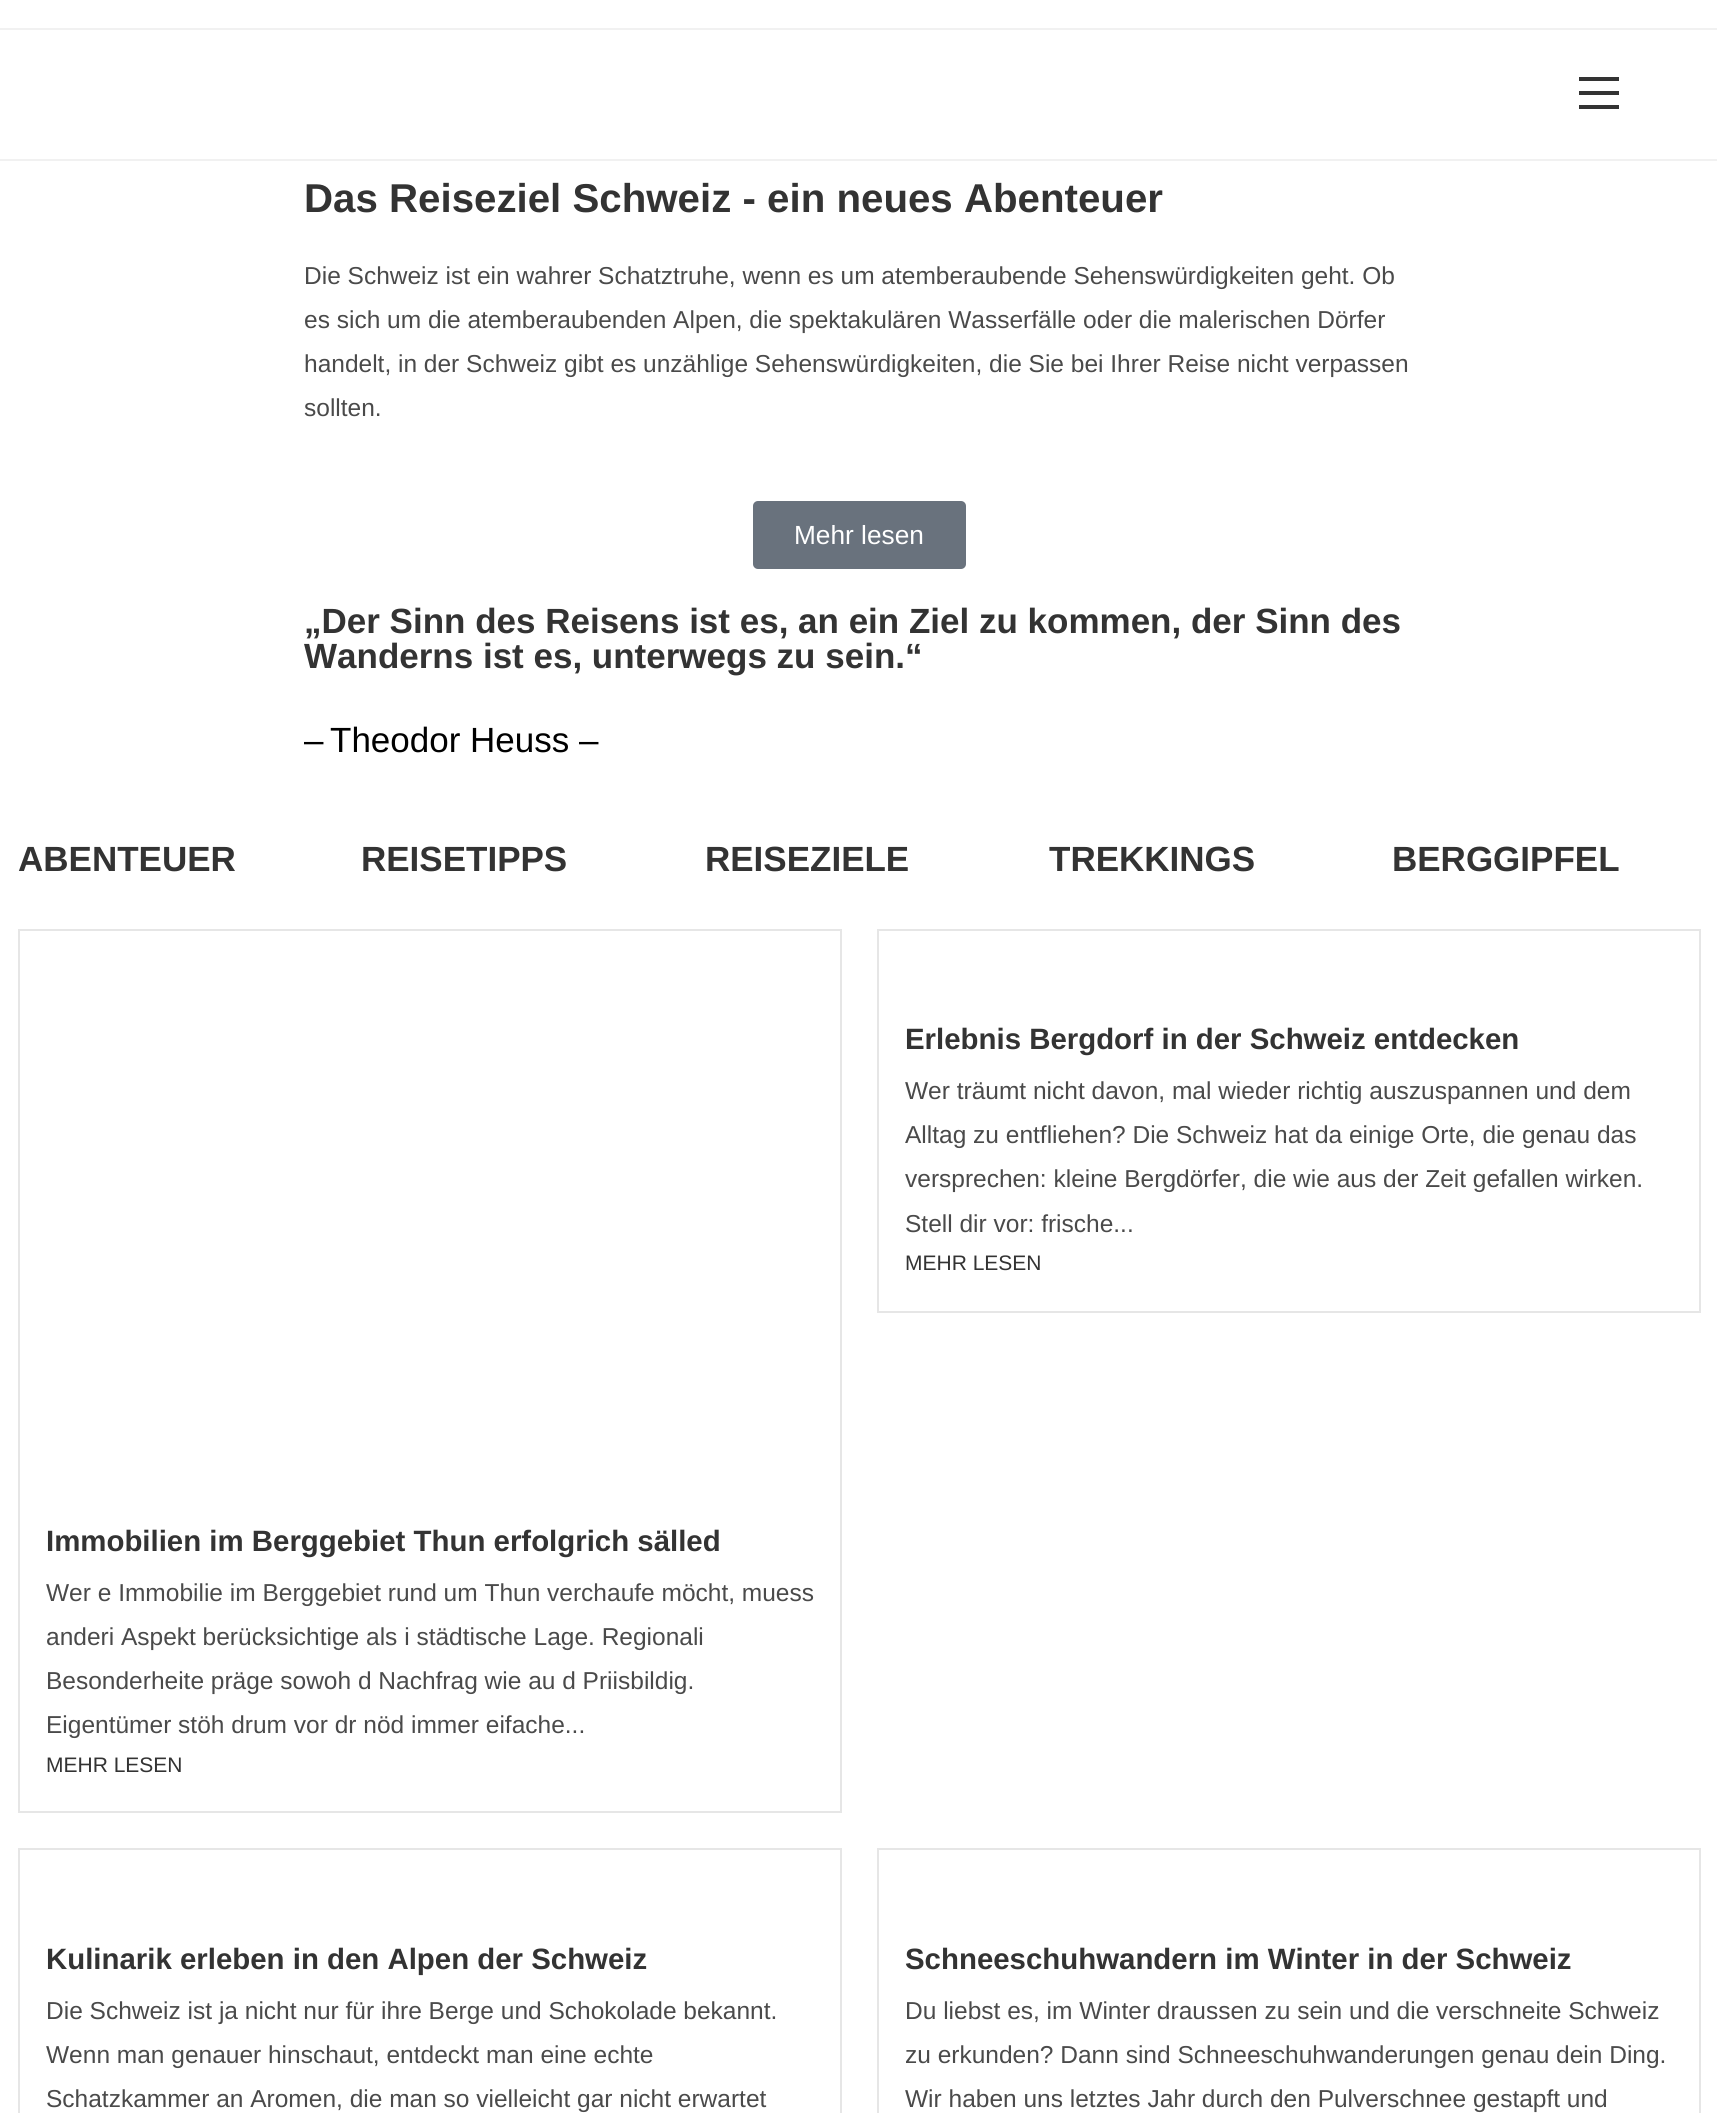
#include <cairo.h>
#include <math.h>
#include <stddef.h>

static cairo_t *ctx;

static void use_color(int r, int g, int b) {
    cairo_set_source_rgb(ctx, r / 255.0, g / 255.0, b / 255.0);
}

static void round_rect(double x, double y, double w, double h, double r) {
    cairo_new_sub_path(ctx);
    cairo_arc(ctx, x + w - r, y + h - r, r, 0, M_PI / 2);
    cairo_arc(ctx, x + r, y + h - r, r, M_PI / 2, M_PI);
    cairo_arc(ctx, x + r, y + r, r, M_PI, 1.5 * M_PI);
    cairo_arc(ctx, x + w - r, y + r, r, 1.5 * M_PI, 2 * M_PI);
    cairo_close_path(ctx);
}

int main(void) {
    cairo_surface_t *surface = cairo_image_surface_create(CAIRO_FORMAT_RGB24, 1717, 2113);
    ctx = cairo_create(surface);
    cairo_font_options_t *options = cairo_font_options_create();
    cairo_font_options_set_hint_metrics(options, CAIRO_HINT_METRICS_OFF);
    cairo_font_options_set_hint_style(options, CAIRO_HINT_STYLE_NONE);
    cairo_set_font_options(ctx, options);
    cairo_set_miter_limit(ctx, 4);
    use_color(255, 255, 255);
    cairo_paint(ctx);
    use_color(241, 241, 241);
    cairo_rectangle(ctx, 0, 28, 1717, 2);
    cairo_fill(ctx);
    cairo_rectangle(ctx, 0, 159, 1717, 2);
    cairo_fill(ctx);
    use_color(51, 51, 51);
    cairo_rectangle(ctx, 1579, 91, 40, 4);
    cairo_fill(ctx);
    cairo_rectangle(ctx, 1579, 77, 40, 4);
    cairo_fill(ctx);
    cairo_rectangle(ctx, 1579, 105, 40, 4);
    cairo_fill(ctx);
    cairo_select_font_face(ctx, "Liberation Sans", CAIRO_FONT_SLANT_NORMAL, CAIRO_FONT_WEIGHT_BOLD);
    cairo_set_font_size(ctx, 40.25);
    cairo_move_to(ctx, 304, 212);
    cairo_show_text(ctx, "Das Reiseziel Schweiz - ein neues Abenteuer");
    cairo_select_font_face(ctx, "Liberation Sans", CAIRO_FONT_SLANT_NORMAL, CAIRO_FONT_WEIGHT_NORMAL);
    cairo_set_font_size(ctx, 24.5);
    use_color(74, 74, 74);
    cairo_move_to(ctx, 304, 284);
    cairo_show_text(ctx, "Die Schweiz ist ein wahrer Schatztruhe, wenn es um atemberaubende Sehenswürdigkeiten geht. Ob");
    cairo_move_to(ctx, 304, 328);
    cairo_show_text(ctx, "es sich um die atemberaubenden Alpen, die spektakulären Wasserfälle oder die malerischen Dörfer");
    cairo_move_to(ctx, 304, 372);
    cairo_show_text(ctx, "handelt, in der Schweiz gibt es unzählige Sehenswürdigkeiten, die Sie bei Ihrer Reise nicht verpassen");
    cairo_move_to(ctx, 304, 416);
    cairo_show_text(ctx, "sollten.");
    use_color(105, 114, 125);
    round_rect(753, 501, 213, 68, 5);
    cairo_fill(ctx);
    cairo_set_font_size(ctx, 26.25);
    use_color(255, 255, 255);
    cairo_move_to(ctx, 794, 544);
    cairo_show_text(ctx, "Mehr lesen");
    cairo_select_font_face(ctx, "Liberation Sans", CAIRO_FONT_SLANT_NORMAL, CAIRO_FONT_WEIGHT_BOLD);
    cairo_set_font_size(ctx, 35);
    use_color(51, 51, 51);
    cairo_move_to(ctx, 304, 633);
    cairo_show_text(ctx, "„Der Sinn des Reisens ist es, an ein Ziel zu kommen, der Sinn des");
    cairo_move_to(ctx, 304, 668);
    cairo_show_text(ctx, "Wanderns ist es, unterwegs zu sein.“");
    cairo_select_font_face(ctx, "Liberation Sans", CAIRO_FONT_SLANT_NORMAL, CAIRO_FONT_WEIGHT_NORMAL);
    use_color(0, 0, 0);
    cairo_move_to(ctx, 304, 752);
    cairo_show_text(ctx, "–");
    cairo_move_to(ctx, 330, 752);
    cairo_show_text(ctx, "Theodor Heuss –");
    cairo_select_font_face(ctx, "Liberation Sans", CAIRO_FONT_SLANT_NORMAL, CAIRO_FONT_WEIGHT_BOLD);
    use_color(51, 51, 51);
    cairo_move_to(ctx, 18, 871);
    cairo_show_text(ctx, "ABENTEUER");
    cairo_move_to(ctx, 361, 871);
    cairo_show_text(ctx, "REISETIPPS");
    cairo_move_to(ctx, 705, 871);
    cairo_show_text(ctx, "REISEZIELE");
    cairo_move_to(ctx, 1049, 871);
    cairo_show_text(ctx, "TREKKINGS");
    cairo_move_to(ctx, 1392, 871);
    cairo_show_text(ctx, "BERGGIPFEL");
    cairo_rectangle(ctx, 878, 930, 822, 382);
    use_color(230, 230, 230);
    cairo_stroke(ctx);
    cairo_set_font_size(ctx, 29.4);
    use_color(51, 51, 51);
    cairo_move_to(ctx, 905, 1049);
    cairo_show_text(ctx, "Erlebnis Bergdorf in der Schweiz entdecken");
    cairo_select_font_face(ctx, "Liberation Sans", CAIRO_FONT_SLANT_NORMAL, CAIRO_FONT_WEIGHT_NORMAL);
    cairo_set_font_size(ctx, 24.5);
    use_color(74, 74, 74);
    cairo_move_to(ctx, 905, 1099);
    cairo_show_text(ctx, "Wer träumt nicht davon, mal wieder richtig auszuspannen und dem");
    cairo_move_to(ctx, 905, 1143);
    cairo_show_text(ctx, "Alltag zu entfliehen? Die Schweiz hat da einige Orte, die genau das");
    cairo_move_to(ctx, 905, 1187);
    cairo_show_text(ctx, "versprechen: kleine Bergdörfer, die wie aus der Zeit gefallen wirken.");
    cairo_move_to(ctx, 905, 1232);
    cairo_show_text(ctx, "Stell dir vor: frische...");
    cairo_set_font_size(ctx, 21);
    use_color(51, 51, 51);
    cairo_move_to(ctx, 905, 1270);
    cairo_show_text(ctx, "MEHR LESEN");
    cairo_rectangle(ctx, 19, 930, 822, 882);
    use_color(230, 230, 230);
    cairo_stroke(ctx);
    cairo_select_font_face(ctx, "Liberation Sans", CAIRO_FONT_SLANT_NORMAL, CAIRO_FONT_WEIGHT_BOLD);
    cairo_set_font_size(ctx, 29.4);
    use_color(51, 51, 51);
    cairo_move_to(ctx, 46, 1551);
    cairo_show_text(ctx, "Immobilien im Berggebiet Thun erfolgrich sälled");
    cairo_select_font_face(ctx, "Liberation Sans", CAIRO_FONT_SLANT_NORMAL, CAIRO_FONT_WEIGHT_NORMAL);
    cairo_set_font_size(ctx, 24.5);
    use_color(74, 74, 74);
    cairo_move_to(ctx, 46, 1601);
    cairo_show_text(ctx, "Wer e Immobilie im Berggebiet rund um Thun verchaufe möcht, muess");
    cairo_move_to(ctx, 46, 1645);
    cairo_show_text(ctx, "anderi Aspekt berücksichtige als i städtische Lage. Regionali");
    cairo_move_to(ctx, 46, 1689);
    cairo_show_text(ctx, "Besonderheite präge sowoh d Nachfrag wie au d Priisbildig.");
    cairo_move_to(ctx, 46, 1733);
    cairo_show_text(ctx, "Eigentümer stöh drum vor dr nöd immer eifache...");
    cairo_set_font_size(ctx, 21);
    use_color(51, 51, 51);
    cairo_move_to(ctx, 46, 1772);
    cairo_show_text(ctx, "MEHR LESEN");
    cairo_rectangle(ctx, 19, 1849, 822, 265);
    use_color(230, 230, 230);
    cairo_stroke(ctx);
    cairo_select_font_face(ctx, "Liberation Sans", CAIRO_FONT_SLANT_NORMAL, CAIRO_FONT_WEIGHT_BOLD);
    cairo_set_font_size(ctx, 29.4);
    use_color(51, 51, 51);
    cairo_move_to(ctx, 46, 1969);
    cairo_show_text(ctx, "Kulinarik erleben in den Alpen der Schweiz");
    cairo_select_font_face(ctx, "Liberation Sans", CAIRO_FONT_SLANT_NORMAL, CAIRO_FONT_WEIGHT_NORMAL);
    cairo_set_font_size(ctx, 24.5);
    use_color(74, 74, 74);
    cairo_move_to(ctx, 46, 2019);
    cairo_show_text(ctx, "Die Schweiz ist ja nicht nur für ihre Berge und Schokolade bekannt.");
    cairo_move_to(ctx, 46, 2063);
    cairo_show_text(ctx, "Wenn man genauer hinschaut, entdeckt man eine echte");
    cairo_move_to(ctx, 46, 2107);
    cairo_show_text(ctx, "Schatzkammer an Aromen, die man so vielleicht gar nicht erwartet");
    cairo_rectangle(ctx, 878, 1849, 822, 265);
    use_color(230, 230, 230);
    cairo_stroke(ctx);
    cairo_select_font_face(ctx, "Liberation Sans", CAIRO_FONT_SLANT_NORMAL, CAIRO_FONT_WEIGHT_BOLD);
    cairo_set_font_size(ctx, 29.4);
    use_color(51, 51, 51);
    cairo_move_to(ctx, 905, 1969);
    cairo_show_text(ctx, "Schneeschuhwandern im Winter in der Schweiz");
    cairo_select_font_face(ctx, "Liberation Sans", CAIRO_FONT_SLANT_NORMAL, CAIRO_FONT_WEIGHT_NORMAL);
    cairo_set_font_size(ctx, 24.5);
    use_color(74, 74, 74);
    cairo_move_to(ctx, 905, 2019);
    cairo_show_text(ctx, "Du liebst es, im Winter draussen zu sein und die verschneite Schweiz");
    cairo_move_to(ctx, 905, 2063);
    cairo_show_text(ctx, "zu erkunden? Dann sind Schneeschuhwanderungen genau dein Ding.");
    cairo_move_to(ctx, 905, 2107);
    cairo_show_text(ctx, "Wir haben uns letztes Jahr durch den Pulverschnee gestapft und");
    cairo_surface_write_to_png(surface, "result.png");
    cairo_font_options_destroy(options);
    cairo_destroy(ctx);
    cairo_surface_destroy(surface);
    return 0;
}
